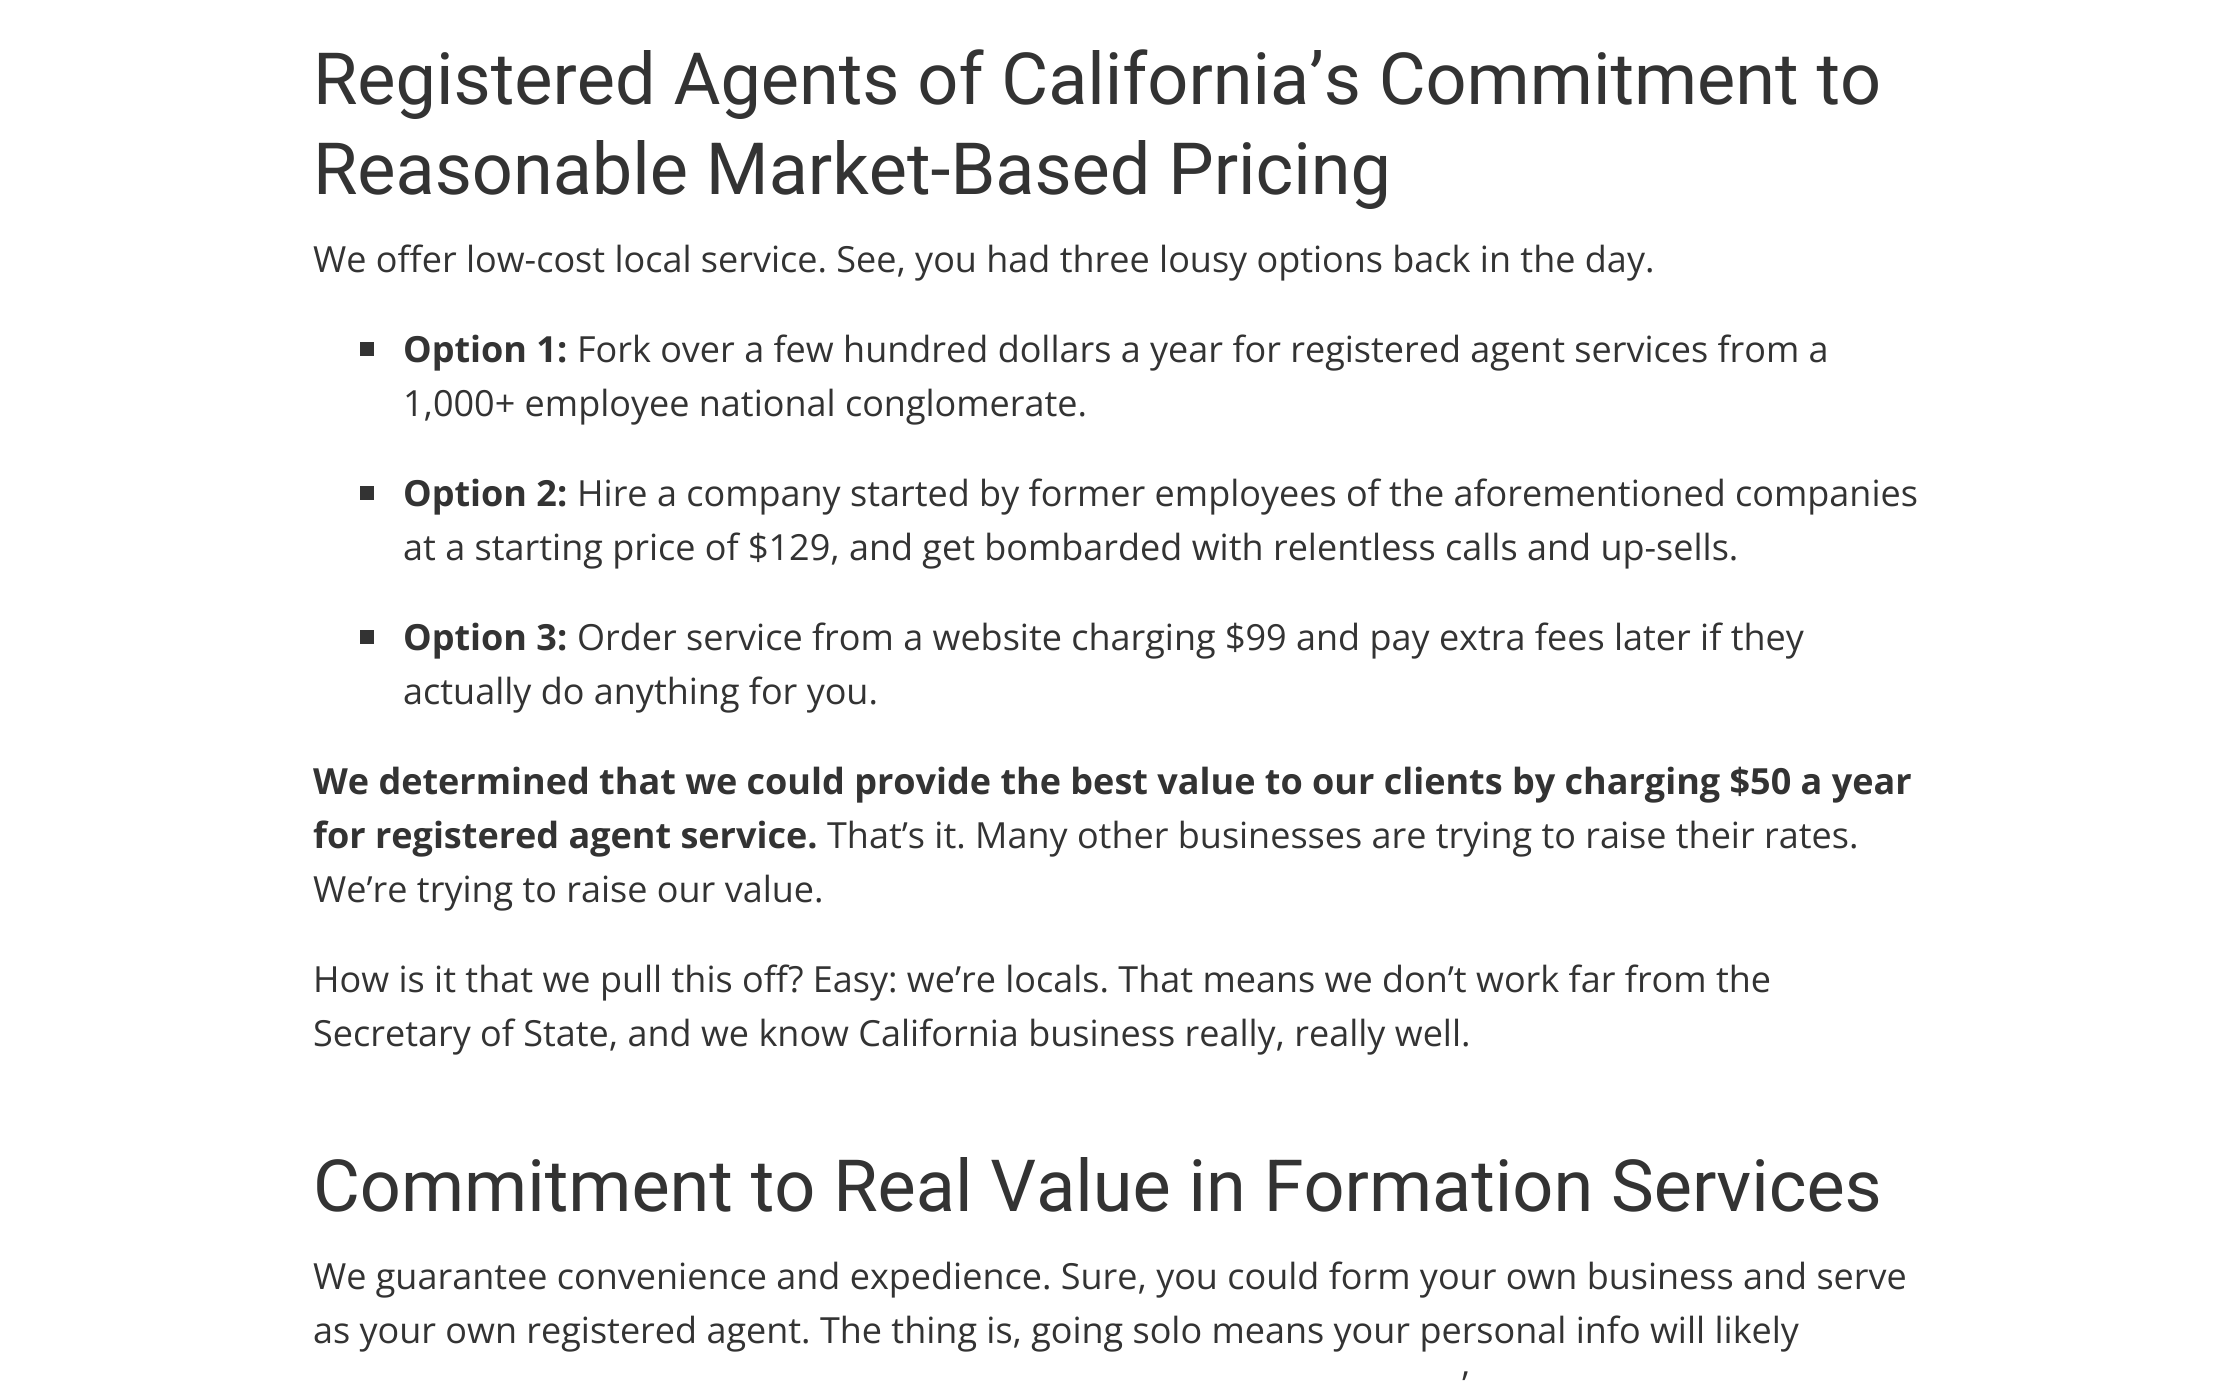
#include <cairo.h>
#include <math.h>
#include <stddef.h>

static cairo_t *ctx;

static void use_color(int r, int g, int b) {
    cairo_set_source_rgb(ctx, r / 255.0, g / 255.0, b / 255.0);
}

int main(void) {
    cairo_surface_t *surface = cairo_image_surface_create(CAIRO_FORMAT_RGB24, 2234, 1389);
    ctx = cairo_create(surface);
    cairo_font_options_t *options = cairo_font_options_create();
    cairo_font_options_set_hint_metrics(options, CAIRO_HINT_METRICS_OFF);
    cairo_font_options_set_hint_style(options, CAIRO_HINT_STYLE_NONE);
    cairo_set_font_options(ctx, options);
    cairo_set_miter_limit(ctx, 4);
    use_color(255, 255, 255);
    cairo_paint(ctx);
    cairo_select_font_face(ctx, "Roboto", CAIRO_FONT_SLANT_NORMAL, CAIRO_FONT_WEIGHT_NORMAL);
    cairo_set_font_size(ctx, 72);
    use_color(51, 51, 51);
    cairo_move_to(ctx, 313, 104);
    cairo_show_text(ctx, "Registered Agents of California’s Commitment to");
    cairo_move_to(ctx, 313, 194);
    cairo_show_text(ctx, "Reasonable Market-Based Pricing");
    cairo_select_font_face(ctx, "Open Sans", CAIRO_FONT_SLANT_NORMAL, CAIRO_FONT_WEIGHT_NORMAL);
    cairo_set_font_size(ctx, 36);
    cairo_move_to(ctx, 313, 272);
    cairo_show_text(ctx, "We offer low-cost local service. See, you had three lousy options back in the day.");
    cairo_rectangle(ctx, 360, 342, 14, 14);
    cairo_fill(ctx);
    cairo_select_font_face(ctx, "Open Sans", CAIRO_FONT_SLANT_NORMAL, CAIRO_FONT_WEIGHT_BOLD);
    cairo_move_to(ctx, 403, 362);
    cairo_show_text(ctx, "Option 1:");
    cairo_select_font_face(ctx, "Open Sans", CAIRO_FONT_SLANT_NORMAL, CAIRO_FONT_WEIGHT_NORMAL);
    cairo_move_to(ctx, 577, 362);
    cairo_show_text(ctx, "Fork over a few hundred dollars a year for registered agent services from a");
    cairo_move_to(ctx, 403, 416);
    cairo_show_text(ctx, "1,000+ employee national conglomerate.");
    cairo_rectangle(ctx, 360, 486, 14, 14);
    cairo_fill(ctx);
    cairo_select_font_face(ctx, "Open Sans", CAIRO_FONT_SLANT_NORMAL, CAIRO_FONT_WEIGHT_BOLD);
    cairo_move_to(ctx, 403, 506);
    cairo_show_text(ctx, "Option 2:");
    cairo_select_font_face(ctx, "Open Sans", CAIRO_FONT_SLANT_NORMAL, CAIRO_FONT_WEIGHT_NORMAL);
    cairo_move_to(ctx, 577, 506);
    cairo_show_text(ctx, "Hire a company started by former employees of the aforementioned companies");
    cairo_move_to(ctx, 403, 560);
    cairo_show_text(ctx, "at a starting price of $129, and get bombarded with relentless calls and up-sells.");
    cairo_rectangle(ctx, 360, 630, 14, 14);
    cairo_fill(ctx);
    cairo_select_font_face(ctx, "Open Sans", CAIRO_FONT_SLANT_NORMAL, CAIRO_FONT_WEIGHT_BOLD);
    cairo_move_to(ctx, 403, 650);
    cairo_show_text(ctx, "Option 3:");
    cairo_select_font_face(ctx, "Open Sans", CAIRO_FONT_SLANT_NORMAL, CAIRO_FONT_WEIGHT_NORMAL);
    cairo_move_to(ctx, 577, 650);
    cairo_show_text(ctx, "Order service from a website charging $99 and pay extra fees later if they");
    cairo_move_to(ctx, 403, 704);
    cairo_show_text(ctx, "actually do anything for you.");
    cairo_select_font_face(ctx, "Open Sans", CAIRO_FONT_SLANT_NORMAL, CAIRO_FONT_WEIGHT_BOLD);
    cairo_move_to(ctx, 313, 794);
    cairo_show_text(ctx, "We determined that we could provide the best value to our clients by charging $50 a year");
    cairo_move_to(ctx, 313, 848);
    cairo_show_text(ctx, "for registered agent service.");
    cairo_select_font_face(ctx, "Open Sans", CAIRO_FONT_SLANT_NORMAL, CAIRO_FONT_WEIGHT_NORMAL);
    cairo_move_to(ctx, 827, 848);
    cairo_show_text(ctx, "That’s it. Many other businesses are trying to raise their rates.");
    cairo_move_to(ctx, 313, 902);
    cairo_show_text(ctx, "We’re trying to raise our value.");
    cairo_move_to(ctx, 313, 992);
    cairo_show_text(ctx, "How is it that we pull this off? Easy: we’re locals. That means we don’t work far from the");
    cairo_move_to(ctx, 313, 1046);
    cairo_show_text(ctx, "Secretary of State, and we know California business really, really well.");
    cairo_select_font_face(ctx, "Roboto", CAIRO_FONT_SLANT_NORMAL, CAIRO_FONT_WEIGHT_NORMAL);
    cairo_set_font_size(ctx, 72);
    cairo_move_to(ctx, 313, 1211);
    cairo_show_text(ctx, "Commitment to Real Value in Formation Services");
    cairo_select_font_face(ctx, "Open Sans", CAIRO_FONT_SLANT_NORMAL, CAIRO_FONT_WEIGHT_NORMAL);
    cairo_set_font_size(ctx, 36);
    cairo_move_to(ctx, 313, 1289);
    cairo_show_text(ctx, "We guarantee convenience and expedience. Sure, you could form your own business and serve");
    cairo_move_to(ctx, 313, 1343);
    cairo_show_text(ctx, "as your own registered agent. The thing is, going solo means your personal info will likely");
    cairo_move_to(ctx, 1462, 1397);
    cairo_show_text(ctx, "’");
    cairo_surface_write_to_png(surface, "result.png");
    cairo_font_options_destroy(options);
    cairo_destroy(ctx);
    cairo_surface_destroy(surface);
    return 0;
}
